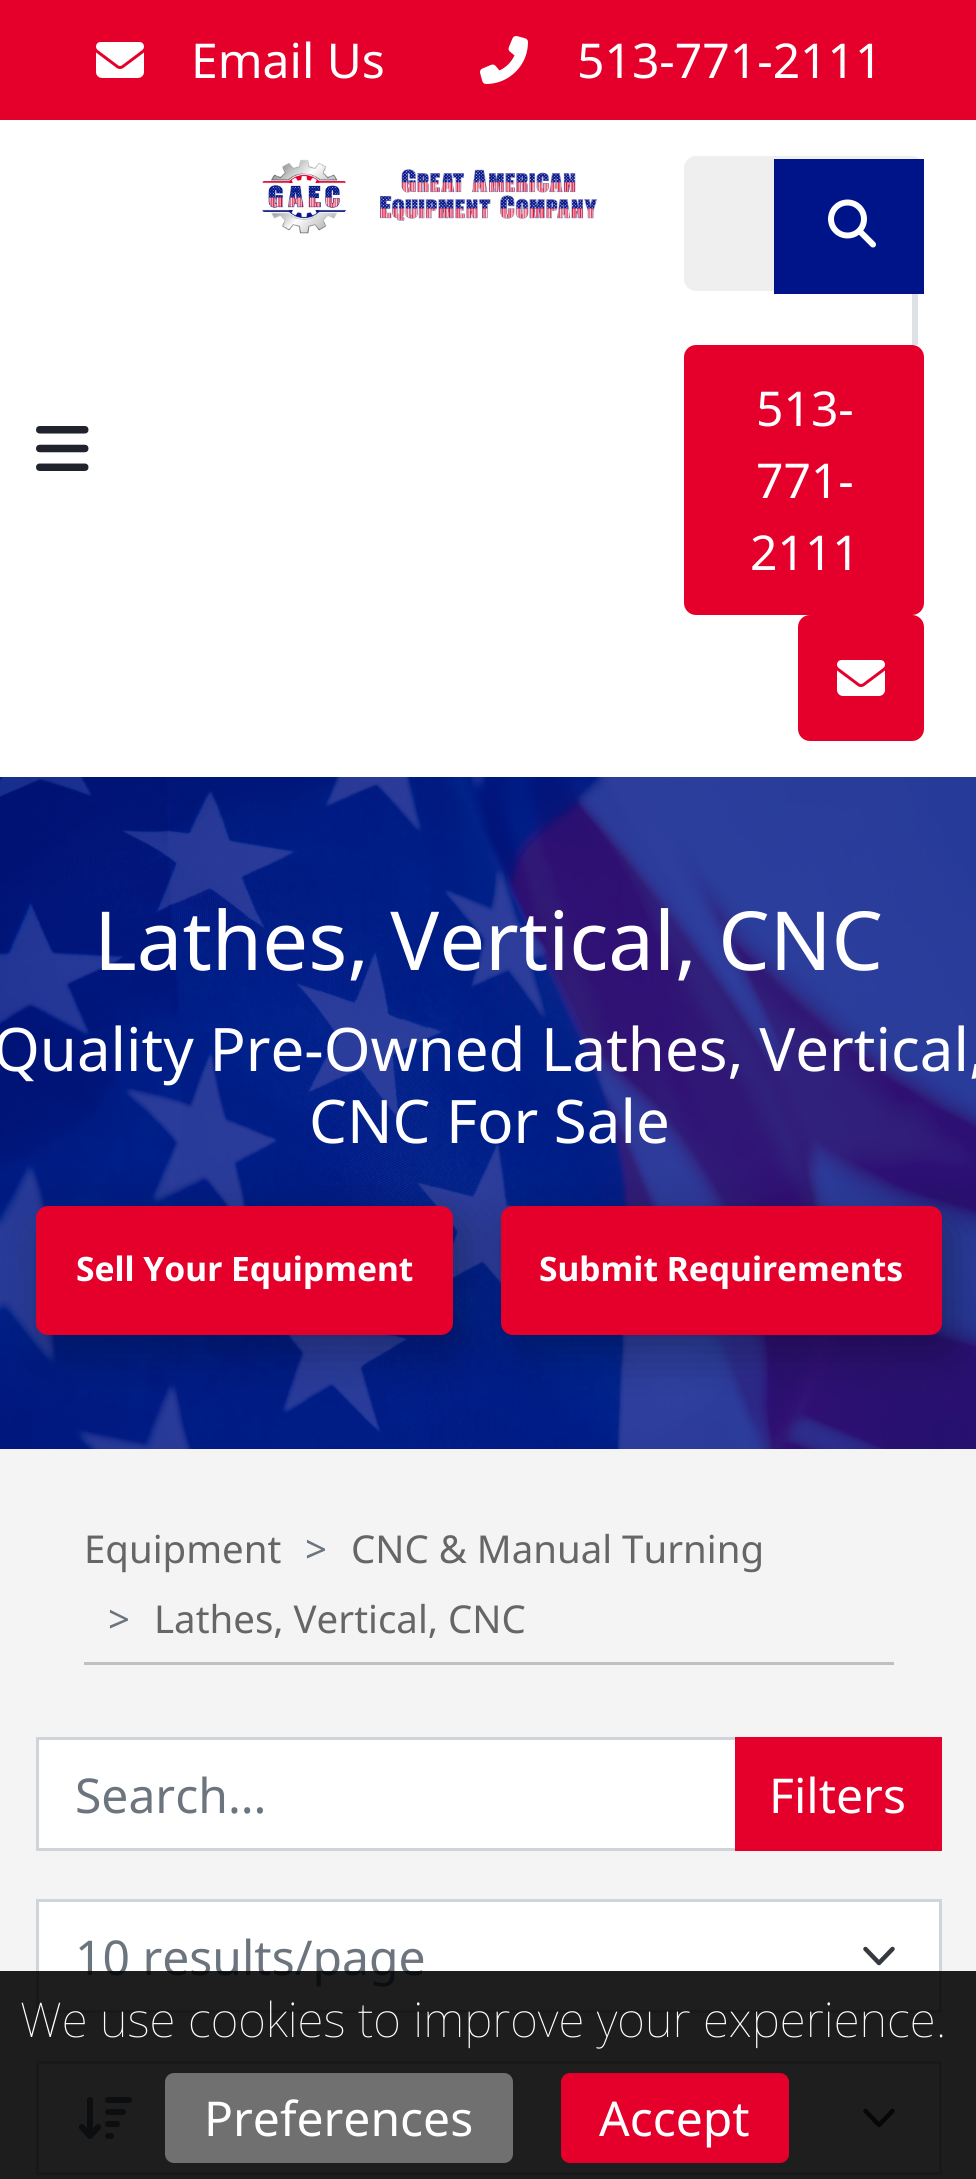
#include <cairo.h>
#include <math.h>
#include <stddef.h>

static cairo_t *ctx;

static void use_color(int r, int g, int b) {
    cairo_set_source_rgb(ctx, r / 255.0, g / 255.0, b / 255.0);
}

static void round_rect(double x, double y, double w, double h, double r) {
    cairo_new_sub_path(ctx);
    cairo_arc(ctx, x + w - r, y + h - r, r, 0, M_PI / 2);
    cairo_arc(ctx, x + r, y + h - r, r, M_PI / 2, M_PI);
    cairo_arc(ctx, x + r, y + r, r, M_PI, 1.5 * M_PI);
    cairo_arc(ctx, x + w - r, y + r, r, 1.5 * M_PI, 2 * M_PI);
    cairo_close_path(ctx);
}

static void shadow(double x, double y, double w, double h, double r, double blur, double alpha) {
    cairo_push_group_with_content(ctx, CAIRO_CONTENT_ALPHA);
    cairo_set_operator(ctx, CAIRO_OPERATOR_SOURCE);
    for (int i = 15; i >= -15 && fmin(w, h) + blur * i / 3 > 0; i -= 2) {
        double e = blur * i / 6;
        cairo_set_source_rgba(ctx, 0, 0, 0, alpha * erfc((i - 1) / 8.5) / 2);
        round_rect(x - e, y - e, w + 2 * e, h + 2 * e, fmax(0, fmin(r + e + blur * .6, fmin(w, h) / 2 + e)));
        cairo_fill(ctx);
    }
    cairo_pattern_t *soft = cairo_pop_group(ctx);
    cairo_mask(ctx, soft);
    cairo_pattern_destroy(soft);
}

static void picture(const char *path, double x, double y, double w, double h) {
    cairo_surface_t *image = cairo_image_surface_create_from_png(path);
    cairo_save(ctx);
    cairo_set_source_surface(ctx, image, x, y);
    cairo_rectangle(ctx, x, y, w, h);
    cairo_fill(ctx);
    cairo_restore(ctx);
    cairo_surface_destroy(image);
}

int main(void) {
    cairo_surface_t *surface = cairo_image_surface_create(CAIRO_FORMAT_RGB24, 976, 2179);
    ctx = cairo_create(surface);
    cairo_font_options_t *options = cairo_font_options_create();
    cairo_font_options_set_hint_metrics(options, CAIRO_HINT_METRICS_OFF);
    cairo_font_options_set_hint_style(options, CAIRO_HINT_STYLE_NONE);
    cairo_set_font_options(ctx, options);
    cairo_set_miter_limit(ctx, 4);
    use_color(244, 244, 244);
    cairo_paint(ctx);
    use_color(228, 0, 43);
    cairo_rectangle(ctx, 0, 0, 976, 120);
    cairo_fill(ctx);
    picture("img1.png", 96, 42, 48, 36);
    cairo_select_font_face(ctx, "Noto Sans", CAIRO_FONT_SLANT_NORMAL, CAIRO_FONT_WEIGHT_NORMAL);
    cairo_set_font_size(ctx, 48);
    use_color(255, 255, 255);
    cairo_move_to(ctx, 191, 78);
    cairo_show_text(ctx, "Email Us");
    picture("img2.png", 480, 36, 48, 48);
    cairo_move_to(ctx, 577, 78);
    cairo_show_text(ctx, "513-771-2111");
    cairo_rectangle(ctx, 0, 120, 976, 657);
    cairo_fill(ctx);
    picture("img3.png", 262, 159, 335, 75);
    picture("img4.png", 36, 426, 53, 45);
    use_color(239, 239, 239);
    round_rect(684, 156, 240, 135, 12);
    cairo_fill(ctx);
    use_color(222, 226, 230);
    cairo_rectangle(ctx, 912, 291, 6, 54);
    cairo_fill(ctx);
    use_color(0, 20, 137);
    cairo_rectangle(ctx, 774, 159, 150, 135);
    cairo_fill(ctx);
    picture("img5.png", 828, 199, 48, 49);
    use_color(228, 0, 43);
    round_rect(685.5, 346.5, 237, 267, 10.5);
    cairo_fill_preserve(ctx);
    cairo_set_line_width(ctx, 3);
    cairo_stroke(ctx);
    use_color(255, 255, 255);
    cairo_move_to(ctx, 756, 426);
    cairo_show_text(ctx, "513-");
    cairo_move_to(ctx, 756, 498);
    cairo_show_text(ctx, "771-");
    cairo_move_to(ctx, 750, 570);
    cairo_show_text(ctx, "2111");
    use_color(228, 0, 43);
    round_rect(799.5, 616.5, 123, 123, 10.5);
    cairo_fill_preserve(ctx);
    cairo_stroke(ctx);
    picture("img1.png", 837, 660, 48, 36);
    picture("img6.png", 0, 777, 976, 672);
    cairo_set_font_size(ctx, 81.5);
    use_color(255, 255, 255);
    cairo_move_to(ctx, 94, 970);
    cairo_show_text(ctx, "Lathes, Vertical, CNC");
    cairo_set_font_size(ctx, 60);
    cairo_move_to(ctx, -7, 1071);
    cairo_show_text(ctx, "Quality Pre-Owned Lathes, Vertical,");
    cairo_move_to(ctx, 309, 1143);
    cairo_show_text(ctx, "CNC For Sale");
    use_color(0, 0, 0);
    shadow(45, 1221, 417, 129, 12, 24, 0.3);
    use_color(228, 0, 43);
    round_rect(37.5, 1207.5, 414, 126, 10.5);
    cairo_fill_preserve(ctx);
    cairo_stroke(ctx);
    cairo_select_font_face(ctx, "Noto Sans", CAIRO_FONT_SLANT_NORMAL, CAIRO_FONT_WEIGHT_BOLD);
    cairo_set_font_size(ctx, 33.6);
    use_color(255, 255, 255);
    cairo_move_to(ctx, 76, 1281);
    cairo_show_text(ctx, "Sell Your Equipment");
    use_color(0, 0, 0);
    shadow(510, 1221, 441, 129, 12, 24, 0.3);
    use_color(228, 0, 43);
    round_rect(502.5, 1207.5, 438, 126, 10.5);
    cairo_fill_preserve(ctx);
    cairo_stroke(ctx);
    use_color(255, 255, 255);
    cairo_move_to(ctx, 539, 1281);
    cairo_show_text(ctx, "Submit Requirements");
    cairo_select_font_face(ctx, "Noto Sans", CAIRO_FONT_SLANT_NORMAL, CAIRO_FONT_WEIGHT_NORMAL);
    cairo_set_font_size(ctx, 38.4);
    use_color(102, 102, 102);
    cairo_move_to(ctx, 84, 1563);
    cairo_show_text(ctx, "Equipment");
    use_color(108, 117, 125);
    cairo_move_to(ctx, 305, 1563);
    cairo_show_text(ctx, ">");
    use_color(102, 102, 102);
    cairo_move_to(ctx, 351, 1563);
    cairo_show_text(ctx, "CNC & Manual Turning");
    use_color(108, 117, 125);
    cairo_move_to(ctx, 108, 1633);
    cairo_show_text(ctx, ">");
    use_color(102, 102, 102);
    cairo_move_to(ctx, 154, 1633);
    cairo_show_text(ctx, "Lathes, Vertical, CNC");
    use_color(191, 192, 193);
    cairo_rectangle(ctx, 84, 1662, 810, 3);
    cairo_fill(ctx);
    use_color(255, 255, 255);
    cairo_rectangle(ctx, 39, 1740, 696, 108);
    cairo_fill(ctx);
    use_color(206, 212, 218);
    cairo_rectangle(ctx, 36, 1737, 699, 3);
    cairo_fill(ctx);
    cairo_rectangle(ctx, 36, 1848, 699, 3);
    cairo_fill(ctx);
    cairo_rectangle(ctx, 36, 1737, 3, 114);
    cairo_fill(ctx);
    cairo_set_font_size(ctx, 48);
    use_color(108, 117, 125);
    cairo_move_to(ctx, 75, 1813);
    cairo_show_text(ctx, "Search...");
    use_color(228, 0, 43);
    cairo_rectangle(ctx, 735, 1737, 207, 114);
    cairo_fill(ctx);
    use_color(255, 255, 255);
    cairo_move_to(ctx, 769, 1813);
    cairo_show_text(ctx, "Filters");
    cairo_rectangle(ctx, 39, 1902, 900, 108);
    cairo_fill(ctx);
    cairo_new_path(ctx);
    cairo_move_to(ctx, 865.5, 1949);
    cairo_line_to(ctx, 879, 1963);
    cairo_line_to(ctx, 892.5, 1949);
    use_color(52, 58, 64);
    cairo_set_line_width(ctx, 4.5);
    cairo_set_line_cap(ctx, CAIRO_LINE_CAP_ROUND);
    cairo_set_line_join(ctx, CAIRO_LINE_JOIN_ROUND);
    cairo_stroke(ctx);
    cairo_rectangle(ctx, 37.5, 1900.5, 903, 111);
    use_color(206, 212, 218);
    cairo_set_line_width(ctx, 3);
    cairo_set_line_cap(ctx, CAIRO_LINE_CAP_BUTT);
    cairo_set_line_join(ctx, CAIRO_LINE_JOIN_MITER);
    cairo_stroke(ctx);
    use_color(108, 117, 125);
    cairo_move_to(ctx, 75, 1975);
    cairo_show_text(ctx, "10 results/page");
    use_color(255, 255, 255);
    cairo_rectangle(ctx, 39, 2064, 900, 108);
    cairo_fill(ctx);
    cairo_new_path(ctx);
    cairo_move_to(ctx, 865.5, 2111);
    cairo_line_to(ctx, 879, 2125);
    cairo_line_to(ctx, 892.5, 2111);
    use_color(52, 58, 64);
    cairo_set_line_width(ctx, 4.5);
    cairo_set_line_cap(ctx, CAIRO_LINE_CAP_ROUND);
    cairo_set_line_join(ctx, CAIRO_LINE_JOIN_ROUND);
    cairo_stroke(ctx);
    cairo_rectangle(ctx, 37.5, 2062.5, 903, 111);
    use_color(206, 212, 218);
    cairo_set_line_width(ctx, 3);
    cairo_set_line_cap(ctx, CAIRO_LINE_CAP_BUTT);
    cairo_set_line_join(ctx, CAIRO_LINE_JOIN_MITER);
    cairo_stroke(ctx);
    picture("img7.png", 78, 2097, 54, 42);
    cairo_set_source_rgba(ctx, 0, 0, 0, 0.88);
    cairo_rectangle(ctx, 0, 1971, 976, 208);
    cairo_fill(ctx);
    cairo_select_font_face(ctx, "Noto Sans Thin", CAIRO_FONT_SLANT_NORMAL, CAIRO_FONT_WEIGHT_NORMAL);
    use_color(255, 255, 255);
    cairo_move_to(ctx, 20, 2037);
    cairo_show_text(ctx, "We use cookies to improve your experience.");
    use_color(112, 112, 113);
    round_rect(166.5, 2074.5, 345, 87, 7.5);
    cairo_fill_preserve(ctx);
    cairo_stroke(ctx);
    cairo_select_font_face(ctx, "Noto Sans", CAIRO_FONT_SLANT_NORMAL, CAIRO_FONT_WEIGHT_NORMAL);
    use_color(255, 255, 255);
    cairo_move_to(ctx, 204, 2136);
    cairo_show_text(ctx, "Preferences");
    use_color(228, 0, 43);
    round_rect(562.5, 2074.5, 225, 87, 7.5);
    cairo_fill_preserve(ctx);
    cairo_stroke(ctx);
    use_color(255, 255, 255);
    cairo_move_to(ctx, 599, 2136);
    cairo_show_text(ctx, "Accept");
    cairo_surface_write_to_png(surface, "result.png");
    cairo_font_options_destroy(options);
    cairo_destroy(ctx);
    cairo_surface_destroy(surface);
    return 0;
}
